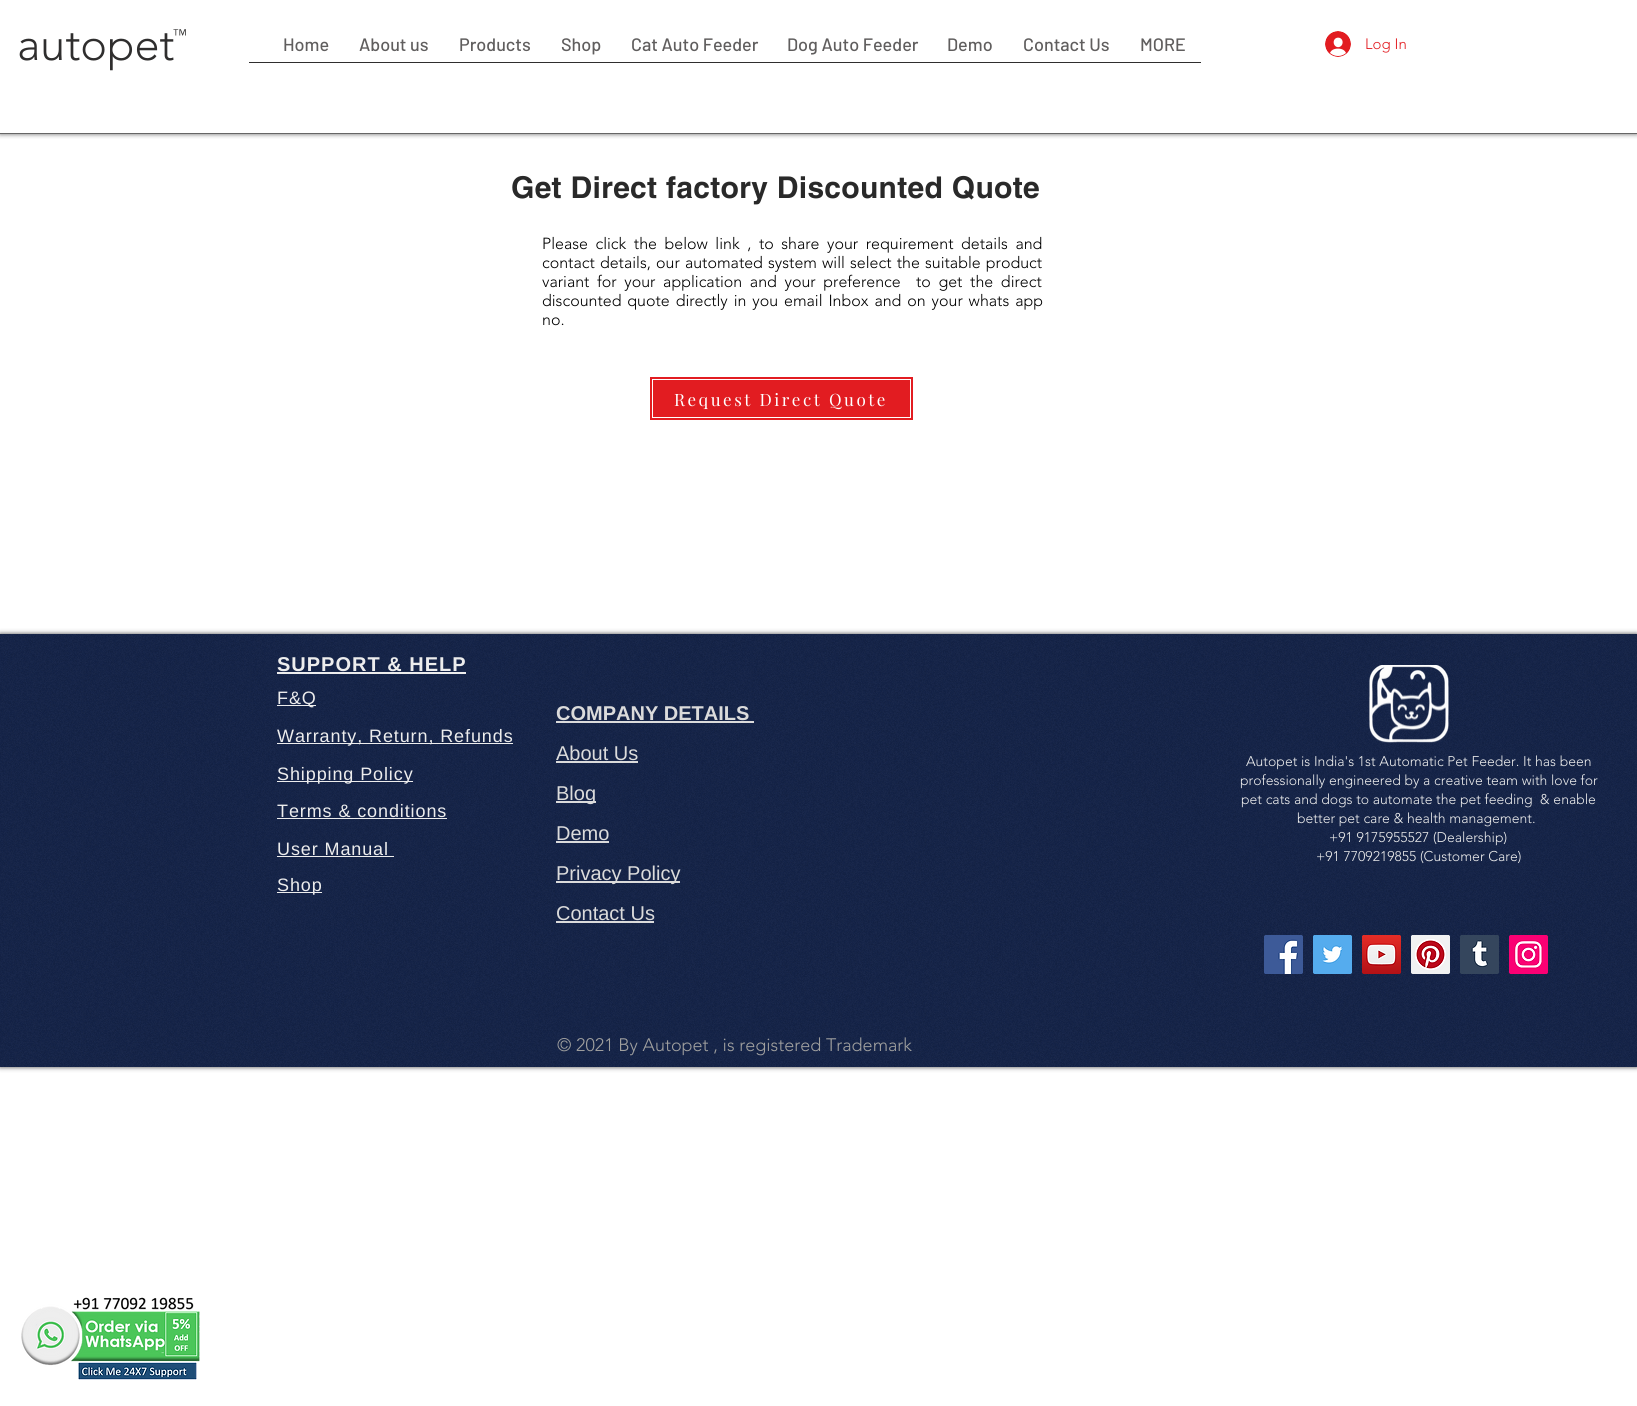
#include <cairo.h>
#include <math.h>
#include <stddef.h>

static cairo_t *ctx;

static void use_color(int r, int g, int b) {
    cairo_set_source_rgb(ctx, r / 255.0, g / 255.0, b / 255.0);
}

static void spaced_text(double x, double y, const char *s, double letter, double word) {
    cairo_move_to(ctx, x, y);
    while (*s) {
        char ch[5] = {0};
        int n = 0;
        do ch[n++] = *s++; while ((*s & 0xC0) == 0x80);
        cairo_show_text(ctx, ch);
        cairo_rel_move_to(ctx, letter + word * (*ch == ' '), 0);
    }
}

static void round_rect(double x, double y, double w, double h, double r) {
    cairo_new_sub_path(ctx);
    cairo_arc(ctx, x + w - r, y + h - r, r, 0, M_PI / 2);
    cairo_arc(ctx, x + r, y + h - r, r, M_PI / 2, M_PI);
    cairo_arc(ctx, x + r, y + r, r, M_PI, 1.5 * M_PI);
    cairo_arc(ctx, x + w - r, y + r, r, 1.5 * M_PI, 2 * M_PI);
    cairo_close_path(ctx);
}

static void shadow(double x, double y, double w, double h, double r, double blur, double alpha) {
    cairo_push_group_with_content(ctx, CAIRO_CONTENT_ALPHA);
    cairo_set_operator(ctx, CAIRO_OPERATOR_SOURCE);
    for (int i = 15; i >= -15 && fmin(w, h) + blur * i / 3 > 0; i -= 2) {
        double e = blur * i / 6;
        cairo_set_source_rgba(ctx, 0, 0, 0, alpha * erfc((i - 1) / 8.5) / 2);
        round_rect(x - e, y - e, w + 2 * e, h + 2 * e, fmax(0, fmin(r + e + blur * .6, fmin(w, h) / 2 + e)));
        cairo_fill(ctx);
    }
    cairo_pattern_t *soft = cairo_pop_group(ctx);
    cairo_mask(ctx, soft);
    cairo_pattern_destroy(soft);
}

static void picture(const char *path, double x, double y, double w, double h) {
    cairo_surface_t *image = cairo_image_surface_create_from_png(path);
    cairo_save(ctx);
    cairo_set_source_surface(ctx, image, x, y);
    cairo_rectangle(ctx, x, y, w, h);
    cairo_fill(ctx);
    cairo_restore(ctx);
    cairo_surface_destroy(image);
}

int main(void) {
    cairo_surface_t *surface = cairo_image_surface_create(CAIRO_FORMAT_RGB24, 1637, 1406);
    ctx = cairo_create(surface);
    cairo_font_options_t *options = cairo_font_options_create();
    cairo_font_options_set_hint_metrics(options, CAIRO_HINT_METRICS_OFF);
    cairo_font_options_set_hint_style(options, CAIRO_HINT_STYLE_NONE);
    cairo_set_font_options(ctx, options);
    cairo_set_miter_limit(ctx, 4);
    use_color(255, 255, 255);
    cairo_paint(ctx);
    cairo_save(ctx);
    cairo_rectangle(ctx, 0, 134, 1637, 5);
    cairo_clip(ctx);
    use_color(0, 0, 0);
    shadow(0, 0, 1637, 134, 0, 2.5, 0.6);
    cairo_restore(ctx);
    use_color(102, 102, 102);
    cairo_rectangle(ctx, 0, 133, 1637, 1);
    cairo_fill(ctx);
    cairo_select_font_face(ctx, "helvetica Light", CAIRO_FONT_SLANT_NORMAL, CAIRO_FONT_WEIGHT_NORMAL);
    cairo_set_font_size(ctx, 15);
    use_color(47, 46, 46);
    cairo_move_to(ctx, 173, 40);
    cairo_show_text(ctx, "™");
    cairo_select_font_face(ctx, "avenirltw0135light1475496 Light", CAIRO_FONT_SLANT_NORMAL, CAIRO_FONT_WEIGHT_NORMAL);
    cairo_set_font_size(ctx, 45);
    cairo_move_to(ctx, 17, 60);
    cairo_show_text(ctx, "autopet");
    cairo_select_font_face(ctx, "Barlow Medium", CAIRO_FONT_SLANT_NORMAL, CAIRO_FONT_WEIGHT_NORMAL);
    cairo_set_font_size(ctx, 18);
    use_color(96, 94, 94);
    cairo_move_to(ctx, 283, 51);
    cairo_show_text(ctx, "Home");
    cairo_move_to(ctx, 359, 51);
    cairo_show_text(ctx, "About us");
    cairo_move_to(ctx, 459, 51);
    cairo_show_text(ctx, "Products");
    cairo_move_to(ctx, 561, 51);
    cairo_show_text(ctx, "Shop");
    cairo_move_to(ctx, 631, 51);
    cairo_show_text(ctx, "Cat Auto Feeder");
    cairo_move_to(ctx, 787, 51);
    cairo_show_text(ctx, "Dog Auto Feeder");
    cairo_move_to(ctx, 947, 51);
    cairo_show_text(ctx, "Demo");
    cairo_move_to(ctx, 1023, 51);
    cairo_show_text(ctx, "Contact Us");
    cairo_move_to(ctx, 1140, 51);
    cairo_show_text(ctx, "MORE");
    use_color(47, 46, 46);
    cairo_rectangle(ctx, 249, 62, 952, 1);
    cairo_fill(ctx);
    picture("img1.png", 1325, 31, 26, 26);
    cairo_select_font_face(ctx, "avenirltw0135light1475496 Light", CAIRO_FONT_SLANT_NORMAL, CAIRO_FONT_WEIGHT_NORMAL);
    cairo_set_font_size(ctx, 15);
    use_color(226, 28, 33);
    cairo_move_to(ctx, 1365, 49);
    cairo_show_text(ctx, "Log In");
    cairo_select_font_face(ctx, "helvetica", CAIRO_FONT_SLANT_NORMAL, CAIRO_FONT_WEIGHT_BOLD);
    cairo_set_font_size(ctx, 30);
    use_color(41, 41, 41);
    spaced_text(511, 198, "Get Direct factory Discounted Quote", 0.3, 0);
    cairo_select_font_face(ctx, "avenirltw0135light1475496 Light", CAIRO_FONT_SLANT_NORMAL, CAIRO_FONT_WEIGHT_NORMAL);
    cairo_set_font_size(ctx, 16);
    use_color(0, 0, 0);
    spaced_text(542, 249, "Please click the below link , to share your requirement details and", 0, 3.4);
    spaced_text(542, 268, "contact details, our automated system will select the suitable product", 0, 1);
    spaced_text(542, 287, "variant for your application and your preference  to get the direct", 0, 3.5);
    spaced_text(542, 306, "discounted quote directly in you email Inbox and on your whats app", 0, 1.75);
    cairo_move_to(ctx, 542, 325);
    cairo_show_text(ctx, "no.");
    use_color(226, 28, 33);
    cairo_rectangle(ctx, 650, 377, 263, 43);
    cairo_fill(ctx);
    cairo_rectangle(ctx, 652.5, 379.5, 258, 38);
    use_color(255, 255, 255);
    cairo_set_line_width(ctx, 1);
    cairo_stroke(ctx);
    cairo_select_font_face(ctx, "Playfair Display", CAIRO_FONT_SLANT_NORMAL, CAIRO_FONT_WEIGHT_NORMAL);
    cairo_set_font_size(ctx, 17);
    spaced_text(674, 406, "Request Direct Quote", 2.5, 0);
    use_color(0, 0, 0);
    shadow(0, 634, 1637, 433, 0, 2.5, 0.7);
    use_color(20, 35, 72);
    cairo_rectangle(ctx, 0, 634, 1637, 433);
    cairo_fill(ctx);
    picture("img2.png", 0, 634, 1637, 433);
    cairo_select_font_face(ctx, "Liberation Sans", CAIRO_FONT_SLANT_NORMAL, CAIRO_FONT_WEIGHT_BOLD);
    cairo_set_font_size(ctx, 20);
    use_color(237, 237, 237);
    spaced_text(277, 671, "SUPPORT & HELP", 1, 0);
    cairo_rectangle(ctx, 277, 672, 189, 2);
    cairo_fill(ctx);
    cairo_rectangle(ctx, 277, 705, 39, 1);
    cairo_fill(ctx);
    cairo_select_font_face(ctx, "Liberation Sans", CAIRO_FONT_SLANT_NORMAL, CAIRO_FONT_WEIGHT_NORMAL);
    cairo_set_font_size(ctx, 18);
    spaced_text(277, 704, "F&Q", 0.9, 0);
    cairo_rectangle(ctx, 277, 743, 236, 1);
    cairo_fill(ctx);
    spaced_text(277, 742, "Warranty, Return, Refunds", 0.9, 0);
    cairo_rectangle(ctx, 277, 781, 136, 1);
    cairo_fill(ctx);
    spaced_text(277, 780, "Shipping Policy", 0.9, 0);
    spaced_text(277, 817, "Terms & conditions", 0.9, 0);
    cairo_rectangle(ctx, 277, 818, 170, 1);
    cairo_fill(ctx);
    spaced_text(277, 855, "User Manual", 0.9, 0);
    cairo_rectangle(ctx, 277, 856, 117, 1);
    cairo_fill(ctx);
    cairo_rectangle(ctx, 277, 892, 45, 1);
    cairo_fill(ctx);
    spaced_text(277, 891, "Shop", 0.9, 0);
    cairo_select_font_face(ctx, "Liberation Sans", CAIRO_FONT_SLANT_NORMAL, CAIRO_FONT_WEIGHT_BOLD);
    cairo_set_font_size(ctx, 20);
    use_color(219, 219, 219);
    cairo_move_to(ctx, 556, 720);
    cairo_show_text(ctx, "COMPANY DETAILS");
    cairo_rectangle(ctx, 556, 721, 198, 2);
    cairo_fill(ctx);
    cairo_select_font_face(ctx, "Liberation Sans", CAIRO_FONT_SLANT_NORMAL, CAIRO_FONT_WEIGHT_NORMAL);
    cairo_move_to(ctx, 556, 760);
    cairo_show_text(ctx, "About Us");
    cairo_rectangle(ctx, 556, 761, 82, 2);
    cairo_fill(ctx);
    cairo_rectangle(ctx, 556, 801, 40, 2);
    cairo_fill(ctx);
    cairo_move_to(ctx, 556, 800);
    cairo_show_text(ctx, "Blog");
    cairo_move_to(ctx, 556, 840);
    cairo_show_text(ctx, "Demo");
    cairo_rectangle(ctx, 556, 841, 53, 2);
    cairo_fill(ctx);
    cairo_rectangle(ctx, 556, 881, 124, 2);
    cairo_fill(ctx);
    cairo_move_to(ctx, 556, 880);
    cairo_show_text(ctx, "Privacy Policy");
    cairo_move_to(ctx, 556, 920);
    cairo_show_text(ctx, "Contact Us");
    cairo_rectangle(ctx, 556, 921, 98, 2);
    cairo_fill(ctx);
    picture("img3.png", 1369, 665, 80, 78);
    cairo_select_font_face(ctx, "avenirltw0135light1475496 Light", CAIRO_FONT_SLANT_NORMAL, CAIRO_FONT_WEIGHT_NORMAL);
    cairo_set_font_size(ctx, 14);
    use_color(237, 237, 237);
    cairo_move_to(ctx, 1246, 766);
    cairo_show_text(ctx, "Autopet is India's 1st Automatic Pet Feeder. It has been");
    cairo_move_to(ctx, 1240, 785);
    cairo_show_text(ctx, "professionally engineered by a creative team with love for");
    cairo_move_to(ctx, 1241, 804);
    cairo_show_text(ctx, "pet cats and dogs to automate the pet feeding  & enable");
    cairo_move_to(ctx, 1297, 823);
    cairo_show_text(ctx, "better pet care & health management.");
    cairo_move_to(ctx, 1329, 842);
    cairo_show_text(ctx, "+91 9175955527 (Dealership)");
    cairo_move_to(ctx, 1316, 861);
    cairo_show_text(ctx, "+91 7709219855 (Customer Care)");
    picture("img4.png", 1264, 935, 39, 39);
    picture("img5.png", 1313, 935, 39, 39);
    picture("img6.png", 1362, 935, 39, 39);
    picture("img7.png", 1411, 935, 39, 39);
    picture("img8.png", 1460, 935, 39, 39);
    picture("img9.png", 1509, 935, 39, 39);
    cairo_set_font_size(ctx, 18);
    use_color(160, 160, 159);
    cairo_move_to(ctx, 557, 1051);
    cairo_show_text(ctx, "© 2021 By Autopet , is registered Trademark");
    picture("img10.png", 21, 1297, 179, 83);
    cairo_surface_write_to_png(surface, "result.png");
    cairo_font_options_destroy(options);
    cairo_destroy(ctx);
    cairo_surface_destroy(surface);
    return 0;
}
